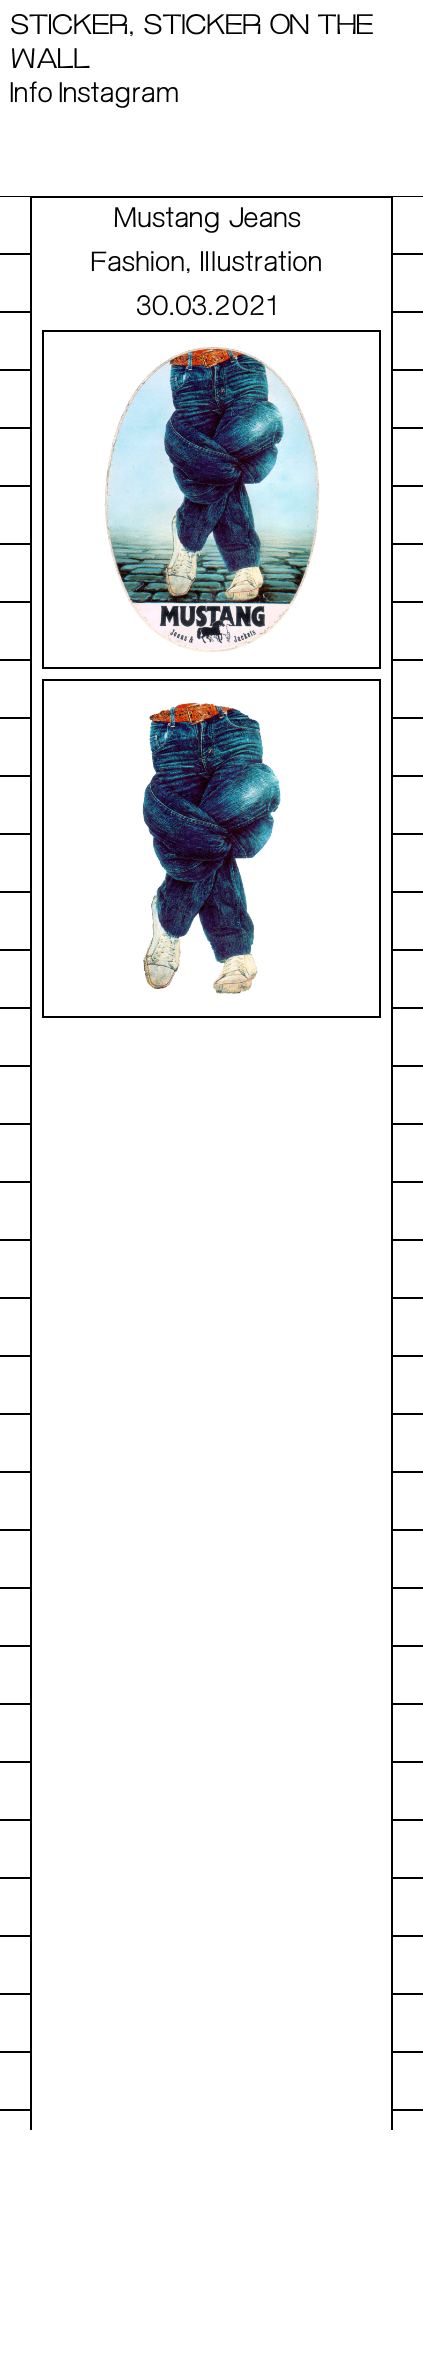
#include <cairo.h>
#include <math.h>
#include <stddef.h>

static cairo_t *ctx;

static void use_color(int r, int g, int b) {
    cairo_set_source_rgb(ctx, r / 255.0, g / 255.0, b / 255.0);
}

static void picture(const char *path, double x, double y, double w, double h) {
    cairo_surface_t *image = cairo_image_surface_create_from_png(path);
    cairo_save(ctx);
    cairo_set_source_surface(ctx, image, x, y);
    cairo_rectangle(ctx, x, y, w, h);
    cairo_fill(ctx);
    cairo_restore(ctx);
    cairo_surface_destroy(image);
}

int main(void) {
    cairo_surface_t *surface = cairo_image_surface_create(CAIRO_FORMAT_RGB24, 423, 2353);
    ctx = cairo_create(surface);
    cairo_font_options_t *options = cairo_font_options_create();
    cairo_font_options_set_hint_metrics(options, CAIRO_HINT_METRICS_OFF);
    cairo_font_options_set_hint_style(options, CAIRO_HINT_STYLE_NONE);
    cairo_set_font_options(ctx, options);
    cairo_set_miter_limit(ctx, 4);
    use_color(255, 255, 255);
    cairo_paint(ctx);
    cairo_select_font_face(ctx, "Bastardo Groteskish", CAIRO_FONT_SLANT_NORMAL, CAIRO_FONT_WEIGHT_NORMAL);
    cairo_set_font_size(ctx, 30);
    use_color(0, 0, 0);
    cairo_move_to(ctx, 10, 34);
    cairo_show_text(ctx, "STICKER, STICKER ON THE");
    cairo_move_to(ctx, 10, 68);
    cairo_show_text(ctx, "WALL");
    cairo_move_to(ctx, 10, 102);
    cairo_show_text(ctx, "Info");
    cairo_move_to(ctx, 59, 102);
    cairo_show_text(ctx, "Instagram");
    picture("img1.png", 0, 196, 423, 1915);
    use_color(255, 255, 255);
    cairo_rectangle(ctx, 32, 253, 359, 1858);
    cairo_fill(ctx);
    use_color(0, 0, 0);
    cairo_rectangle(ctx, 30, 197, 363, 1);
    cairo_fill(ctx);
    cairo_rectangle(ctx, 391, 196, 2, 1934);
    cairo_fill(ctx);
    cairo_rectangle(ctx, 30, 196, 2, 1934);
    cairo_fill(ctx);
    cairo_move_to(ctx, 112, 227);
    cairo_show_text(ctx, "Mustang Jeans");
    cairo_move_to(ctx, 91, 271);
    cairo_show_text(ctx, "Fashion, Illustration");
    cairo_move_to(ctx, 136, 315);
    cairo_show_text(ctx, "30.03.2021");
    cairo_rectangle(ctx, 43, 331, 337, 337);
    cairo_stroke(ctx);
    picture("img2.png", 104, 347, 216, 306);
    cairo_rectangle(ctx, 43, 680, 337, 337);
    cairo_stroke(ctx);
    picture("img3.png", 142, 702, 139, 292);
    cairo_surface_write_to_png(surface, "result.png");
    cairo_font_options_destroy(options);
    cairo_destroy(ctx);
    cairo_surface_destroy(surface);
    return 0;
}
